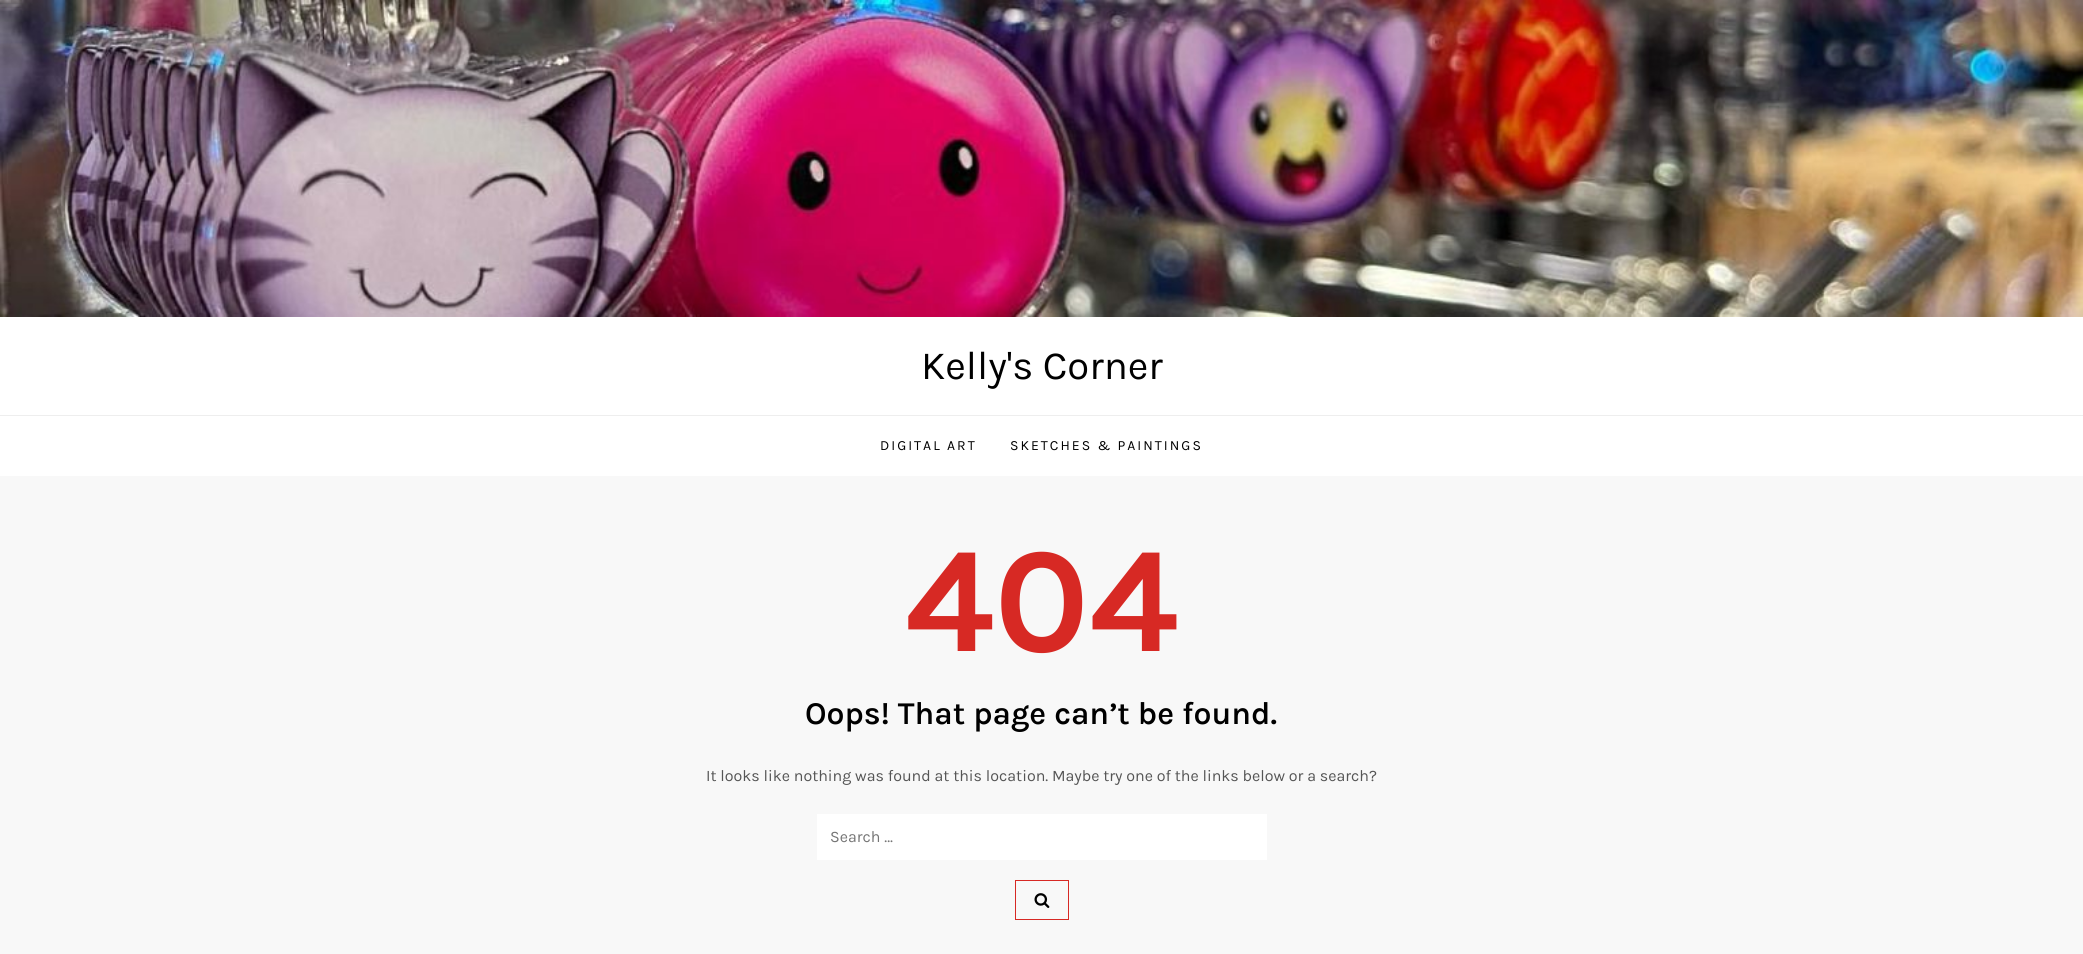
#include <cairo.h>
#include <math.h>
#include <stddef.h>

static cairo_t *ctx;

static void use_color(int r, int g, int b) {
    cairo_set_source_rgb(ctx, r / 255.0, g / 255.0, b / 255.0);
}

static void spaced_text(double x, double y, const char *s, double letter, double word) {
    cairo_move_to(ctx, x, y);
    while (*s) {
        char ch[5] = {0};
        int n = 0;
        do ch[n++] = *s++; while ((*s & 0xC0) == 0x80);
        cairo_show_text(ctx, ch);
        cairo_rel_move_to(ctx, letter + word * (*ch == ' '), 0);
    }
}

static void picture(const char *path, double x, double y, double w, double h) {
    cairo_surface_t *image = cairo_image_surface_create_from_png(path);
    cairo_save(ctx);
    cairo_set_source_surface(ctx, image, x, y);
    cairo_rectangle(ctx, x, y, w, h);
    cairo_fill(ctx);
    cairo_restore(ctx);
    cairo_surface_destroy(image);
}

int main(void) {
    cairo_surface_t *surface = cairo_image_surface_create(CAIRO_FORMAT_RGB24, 2083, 954);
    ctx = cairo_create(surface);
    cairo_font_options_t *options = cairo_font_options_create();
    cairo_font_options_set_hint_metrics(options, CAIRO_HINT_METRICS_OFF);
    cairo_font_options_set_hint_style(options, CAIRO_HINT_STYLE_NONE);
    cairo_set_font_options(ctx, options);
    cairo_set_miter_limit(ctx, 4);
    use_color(248, 248, 248);
    cairo_paint(ctx);
    picture("img1.png", 0, 0, 2083, 317);
    use_color(255, 255, 255);
    cairo_rectangle(ctx, 0, 317, 2083, 159);
    cairo_fill(ctx);
    cairo_select_font_face(ctx, "Karla", CAIRO_FONT_SLANT_NORMAL, CAIRO_FONT_WEIGHT_NORMAL);
    cairo_set_font_size(ctx, 40);
    use_color(0, 0, 0);
    cairo_move_to(ctx, 921, 379);
    cairo_show_text(ctx, "Kelly's Corner");
    use_color(238, 238, 238);
    cairo_rectangle(ctx, 0, 415, 2083, 1);
    cairo_fill(ctx);
    cairo_set_font_size(ctx, 14);
    use_color(0, 0, 0);
    spaced_text(880, 450, "DIGITAL ART", 2, 0);
    spaced_text(1010, 450, "SKETCHES & PAINTINGS", 2, 0);
    cairo_select_font_face(ctx, "Karla", CAIRO_FONT_SLANT_NORMAL, CAIRO_FONT_WEIGHT_BOLD);
    cairo_set_font_size(ctx, 150);
    use_color(215, 41, 36);
    cairo_move_to(ctx, 905, 651);
    cairo_show_text(ctx, "404");
    cairo_select_font_face(ctx, "Karla SemiBold", CAIRO_FONT_SLANT_NORMAL, CAIRO_FONT_WEIGHT_NORMAL);
    cairo_set_font_size(ctx, 32);
    use_color(0, 0, 0);
    cairo_move_to(ctx, 805, 724);
    cairo_show_text(ctx, "Oops! That page can’t be found.");
    cairo_select_font_face(ctx, "Karla", CAIRO_FONT_SLANT_NORMAL, CAIRO_FONT_WEIGHT_NORMAL);
    cairo_set_font_size(ctx, 16);
    use_color(85, 85, 85);
    cairo_move_to(ctx, 706, 781);
    cairo_show_text(ctx, "It looks like nothing was found at this location. Maybe try one of the links below or a search?");
    use_color(255, 255, 255);
    cairo_rectangle(ctx, 817, 814, 450, 46);
    cairo_fill(ctx);
    use_color(117, 117, 117);
    cairo_move_to(ctx, 830, 842);
    cairo_show_text(ctx, "Search …");
    cairo_rectangle(ctx, 1015.5, 880.5, 53, 39);
    use_color(215, 41, 36);
    cairo_set_line_width(ctx, 1);
    cairo_stroke(ctx);
    picture("img2.png", 1034, 893, 16, 15);
    cairo_surface_write_to_png(surface, "result.png");
    cairo_font_options_destroy(options);
    cairo_destroy(ctx);
    cairo_surface_destroy(surface);
    return 0;
}
